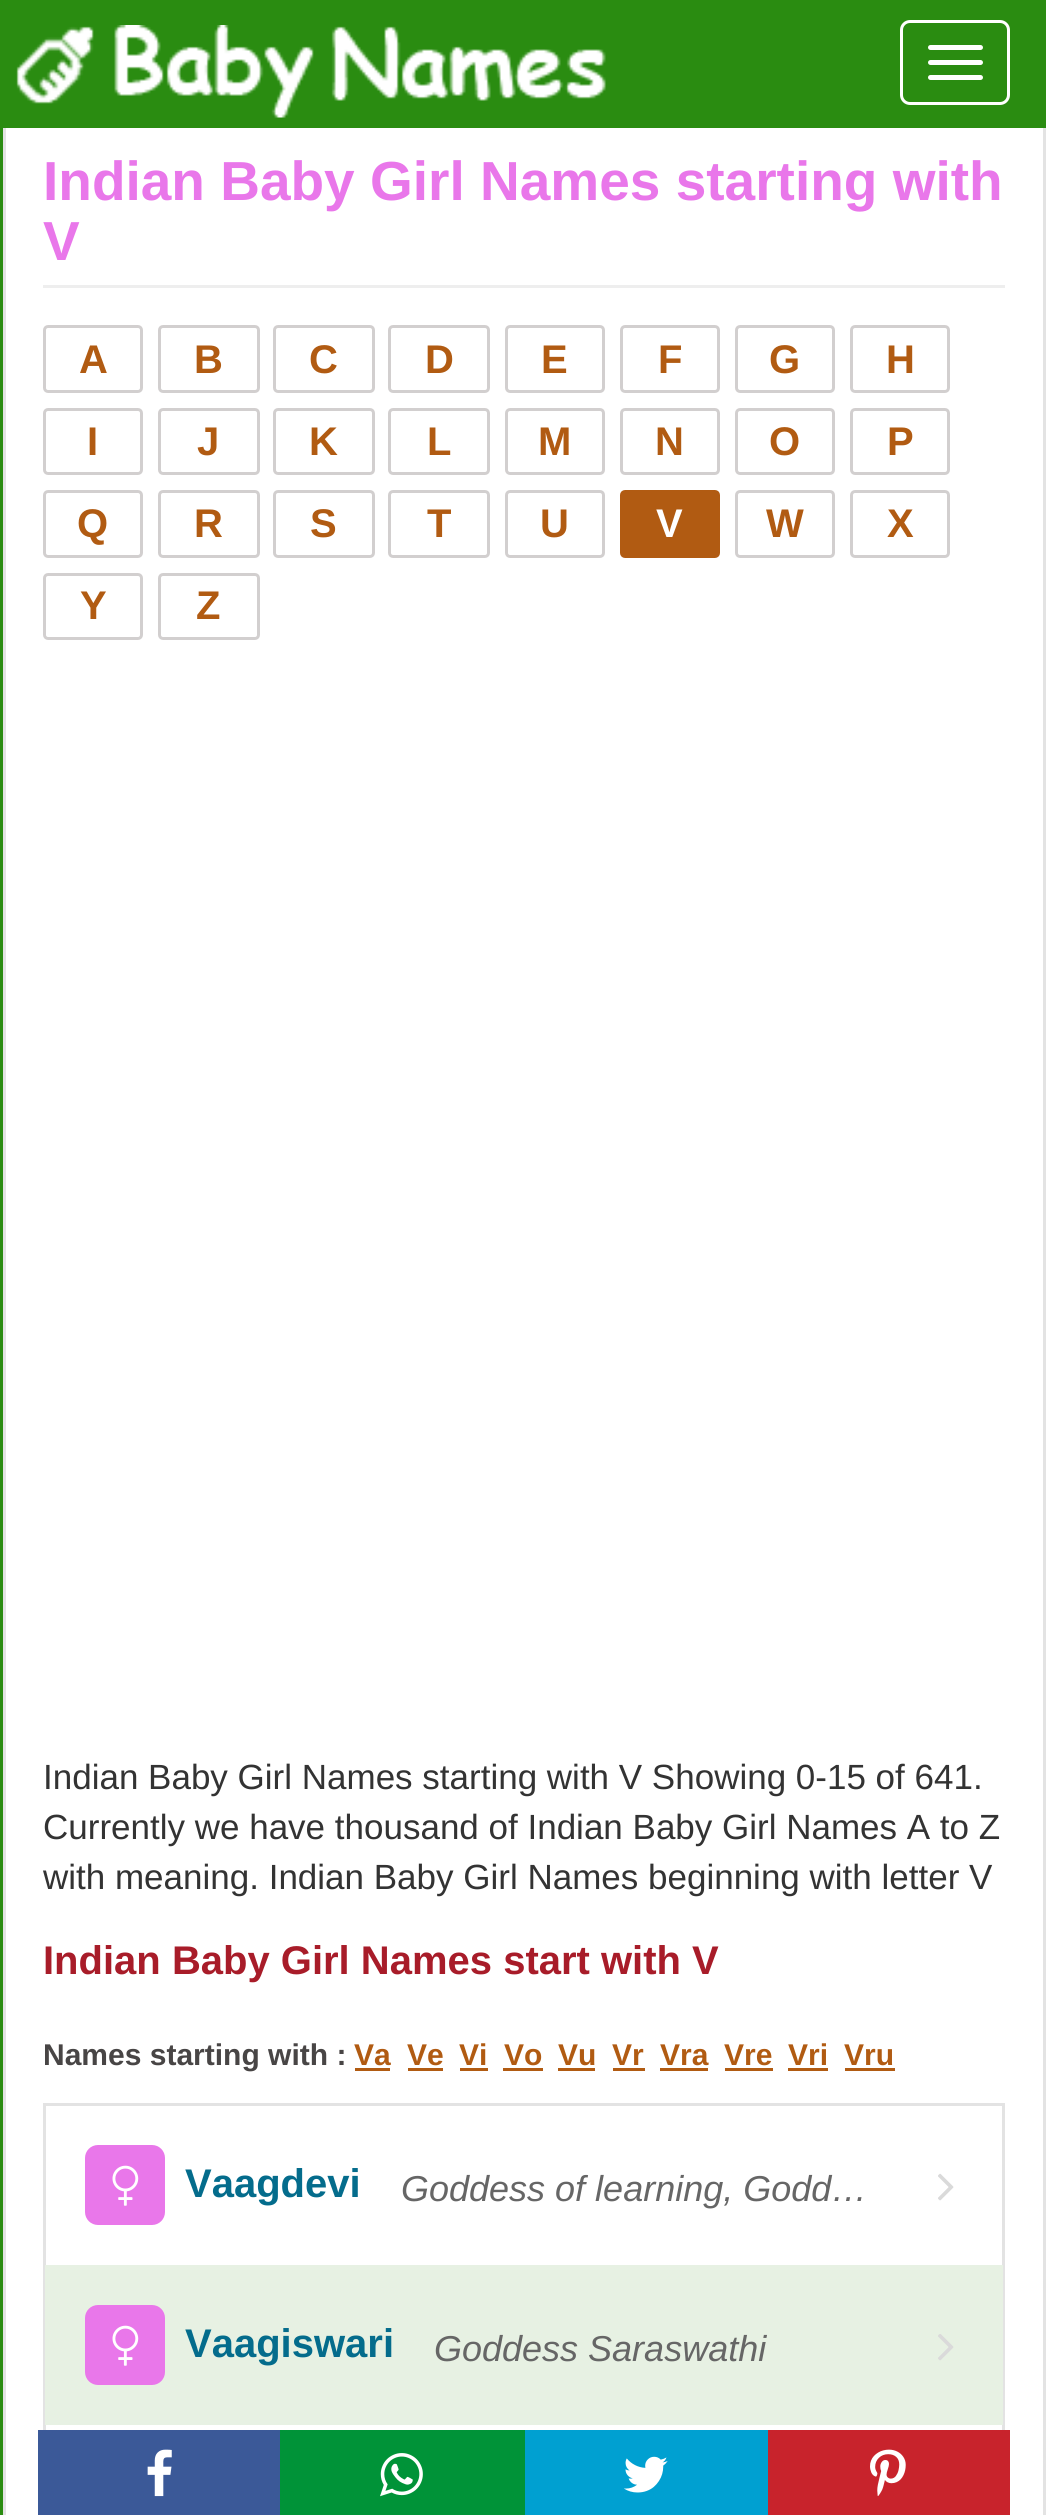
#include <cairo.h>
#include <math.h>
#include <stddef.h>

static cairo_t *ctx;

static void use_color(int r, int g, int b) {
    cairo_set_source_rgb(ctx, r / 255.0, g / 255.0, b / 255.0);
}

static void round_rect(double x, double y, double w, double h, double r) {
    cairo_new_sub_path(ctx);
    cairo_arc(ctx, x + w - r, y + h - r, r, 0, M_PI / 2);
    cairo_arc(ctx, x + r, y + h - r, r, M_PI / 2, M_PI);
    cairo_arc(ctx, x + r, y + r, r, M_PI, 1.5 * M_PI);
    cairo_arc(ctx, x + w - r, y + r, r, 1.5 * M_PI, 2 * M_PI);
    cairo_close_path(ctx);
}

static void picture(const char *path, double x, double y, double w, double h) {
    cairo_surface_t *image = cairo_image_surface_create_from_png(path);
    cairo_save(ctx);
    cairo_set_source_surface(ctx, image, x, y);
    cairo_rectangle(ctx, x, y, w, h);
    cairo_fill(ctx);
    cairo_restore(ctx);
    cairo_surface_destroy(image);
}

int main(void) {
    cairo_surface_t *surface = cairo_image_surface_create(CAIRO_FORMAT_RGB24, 1046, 2515);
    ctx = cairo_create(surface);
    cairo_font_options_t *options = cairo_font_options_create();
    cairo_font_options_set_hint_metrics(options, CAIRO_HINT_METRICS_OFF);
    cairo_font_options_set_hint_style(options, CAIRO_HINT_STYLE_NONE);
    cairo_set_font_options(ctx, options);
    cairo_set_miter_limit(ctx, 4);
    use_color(255, 255, 255);
    cairo_paint(ctx);
    use_color(42, 140, 17);
    cairo_rectangle(ctx, 0, 0, 1046, 125);
    cairo_fill(ctx);
    picture("img1.png", 16, 25, 590, 93);
    round_rect(901.5, 21.5, 107, 82, 8.5);
    use_color(255, 255, 255);
    cairo_set_line_width(ctx, 3);
    cairo_stroke(ctx);
    round_rect(928, 45, 55, 5, 2.5);
    cairo_fill(ctx);
    round_rect(928, 60, 55, 5, 2.5);
    cairo_fill(ctx);
    round_rect(928, 75, 55, 5, 2.5);
    cairo_fill(ctx);
    cairo_rectangle(ctx, 1.5, 126.5, 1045, 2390);
    use_color(42, 140, 17);
    cairo_stroke(ctx);
    use_color(227, 227, 227);
    cairo_rectangle(ctx, 1043, 128, 3, 2387);
    cairo_fill(ctx);
    cairo_rectangle(ctx, 3, 128, 3, 2387);
    cairo_fill(ctx);
    cairo_select_font_face(ctx, "Liberation Sans", CAIRO_FONT_SLANT_NORMAL, CAIRO_FONT_WEIGHT_BOLD);
    cairo_set_font_size(ctx, 55);
    use_color(233, 119, 234);
    cairo_move_to(ctx, 43, 200);
    cairo_show_text(ctx, "Indian Baby Girl Names starting with");
    cairo_move_to(ctx, 43, 260);
    cairo_show_text(ctx, "V");
    use_color(238, 238, 238);
    cairo_rectangle(ctx, 43, 285, 962, 3);
    cairo_fill(ctx);
    round_rect(44.5, 326.5, 97, 65, 3.5);
    use_color(210, 207, 207);
    cairo_stroke(ctx);
    cairo_set_font_size(ctx, 40);
    use_color(177, 91, 18);
    cairo_move_to(ctx, 79, 373);
    cairo_show_text(ctx, "A");
    round_rect(159.5, 326.5, 99, 65, 3.5);
    use_color(210, 207, 207);
    cairo_stroke(ctx);
    use_color(177, 91, 18);
    cairo_move_to(ctx, 194, 373);
    cairo_show_text(ctx, "B");
    round_rect(274.5, 326.5, 99, 65, 3.5);
    use_color(210, 207, 207);
    cairo_stroke(ctx);
    use_color(177, 91, 18);
    cairo_move_to(ctx, 309, 373);
    cairo_show_text(ctx, "C");
    round_rect(389.5, 326.5, 99, 65, 3.5);
    use_color(210, 207, 207);
    cairo_stroke(ctx);
    use_color(177, 91, 18);
    cairo_move_to(ctx, 425, 373);
    cairo_show_text(ctx, "D");
    round_rect(506.5, 326.5, 97, 65, 3.5);
    use_color(210, 207, 207);
    cairo_stroke(ctx);
    use_color(177, 91, 18);
    cairo_move_to(ctx, 541, 373);
    cairo_show_text(ctx, "E");
    round_rect(621.5, 326.5, 97, 65, 3.5);
    use_color(210, 207, 207);
    cairo_stroke(ctx);
    use_color(177, 91, 18);
    cairo_move_to(ctx, 658, 373);
    cairo_show_text(ctx, "F");
    round_rect(736.5, 326.5, 97, 65, 3.5);
    use_color(210, 207, 207);
    cairo_stroke(ctx);
    use_color(177, 91, 18);
    cairo_move_to(ctx, 769, 373);
    cairo_show_text(ctx, "G");
    round_rect(851.5, 326.5, 97, 65, 3.5);
    use_color(210, 207, 207);
    cairo_stroke(ctx);
    use_color(177, 91, 18);
    cairo_move_to(ctx, 886, 373);
    cairo_show_text(ctx, "H");
    round_rect(44.5, 409.5, 97, 64, 3.5);
    use_color(210, 207, 207);
    cairo_stroke(ctx);
    use_color(177, 91, 18);
    cairo_move_to(ctx, 87, 455);
    cairo_show_text(ctx, "I");
    round_rect(159.5, 409.5, 99, 64, 3.5);
    use_color(210, 207, 207);
    cairo_stroke(ctx);
    use_color(177, 91, 18);
    cairo_move_to(ctx, 197, 455);
    cairo_show_text(ctx, "J");
    round_rect(274.5, 409.5, 99, 64, 3.5);
    use_color(210, 207, 207);
    cairo_stroke(ctx);
    use_color(177, 91, 18);
    cairo_move_to(ctx, 309, 455);
    cairo_show_text(ctx, "K");
    round_rect(389.5, 409.5, 99, 64, 3.5);
    use_color(210, 207, 207);
    cairo_stroke(ctx);
    use_color(177, 91, 18);
    cairo_move_to(ctx, 427, 455);
    cairo_show_text(ctx, "L");
    round_rect(506.5, 409.5, 97, 64, 3.5);
    use_color(210, 207, 207);
    cairo_stroke(ctx);
    use_color(177, 91, 18);
    cairo_move_to(ctx, 538, 455);
    cairo_show_text(ctx, "M");
    round_rect(621.5, 409.5, 97, 64, 3.5);
    use_color(210, 207, 207);
    cairo_stroke(ctx);
    use_color(177, 91, 18);
    cairo_move_to(ctx, 655, 455);
    cairo_show_text(ctx, "N");
    round_rect(736.5, 409.5, 97, 64, 3.5);
    use_color(210, 207, 207);
    cairo_stroke(ctx);
    use_color(177, 91, 18);
    cairo_move_to(ctx, 769, 455);
    cairo_show_text(ctx, "O");
    round_rect(851.5, 409.5, 97, 64, 3.5);
    use_color(210, 207, 207);
    cairo_stroke(ctx);
    use_color(177, 91, 18);
    cairo_move_to(ctx, 887, 455);
    cairo_show_text(ctx, "P");
    round_rect(44.5, 491.5, 97, 65, 3.5);
    use_color(210, 207, 207);
    cairo_stroke(ctx);
    use_color(177, 91, 18);
    cairo_move_to(ctx, 77, 537);
    cairo_show_text(ctx, "Q");
    round_rect(159.5, 491.5, 99, 65, 3.5);
    use_color(210, 207, 207);
    cairo_stroke(ctx);
    use_color(177, 91, 18);
    cairo_move_to(ctx, 194, 537);
    cairo_show_text(ctx, "R");
    round_rect(274.5, 491.5, 99, 65, 3.5);
    use_color(210, 207, 207);
    cairo_stroke(ctx);
    use_color(177, 91, 18);
    cairo_move_to(ctx, 310, 537);
    cairo_show_text(ctx, "S");
    round_rect(389.5, 491.5, 99, 65, 3.5);
    use_color(210, 207, 207);
    cairo_stroke(ctx);
    use_color(177, 91, 18);
    cairo_move_to(ctx, 427, 537);
    cairo_show_text(ctx, "T");
    round_rect(506.5, 491.5, 97, 65, 3.5);
    use_color(210, 207, 207);
    cairo_stroke(ctx);
    use_color(177, 91, 18);
    cairo_move_to(ctx, 540, 537);
    cairo_show_text(ctx, "U");
    round_rect(621.5, 491.5, 97, 65, 3.5);
    cairo_fill_preserve(ctx);
    cairo_stroke(ctx);
    use_color(255, 255, 255);
    cairo_move_to(ctx, 656, 537);
    cairo_show_text(ctx, "V");
    round_rect(736.5, 491.5, 97, 65, 3.5);
    use_color(210, 207, 207);
    cairo_stroke(ctx);
    use_color(177, 91, 18);
    cairo_move_to(ctx, 766, 537);
    cairo_show_text(ctx, "W");
    round_rect(851.5, 491.5, 97, 65, 3.5);
    use_color(210, 207, 207);
    cairo_stroke(ctx);
    use_color(177, 91, 18);
    cairo_move_to(ctx, 887, 537);
    cairo_show_text(ctx, "X");
    round_rect(44.5, 574.5, 97, 64, 3.5);
    use_color(210, 207, 207);
    cairo_stroke(ctx);
    use_color(177, 91, 18);
    cairo_move_to(ctx, 80, 619);
    cairo_show_text(ctx, "Y");
    round_rect(159.5, 574.5, 99, 64, 3.5);
    use_color(210, 207, 207);
    cairo_stroke(ctx);
    use_color(177, 91, 18);
    cairo_move_to(ctx, 196, 619);
    cairo_show_text(ctx, "Z");
    cairo_select_font_face(ctx, "Liberation Sans", CAIRO_FONT_SLANT_NORMAL, CAIRO_FONT_WEIGHT_NORMAL);
    cairo_set_font_size(ctx, 35);
    use_color(51, 51, 51);
    cairo_move_to(ctx, 43, 1789);
    cairo_show_text(ctx, "Indian Baby Girl Names starting with V Showing 0-15 of 641.");
    cairo_move_to(ctx, 43, 1839);
    cairo_show_text(ctx, "Currently we have thousand of Indian Baby Girl Names A to Z");
    cairo_move_to(ctx, 43, 1889);
    cairo_show_text(ctx, "with meaning. Indian Baby Girl Names beginning with letter V");
    cairo_select_font_face(ctx, "Liberation Sans", CAIRO_FONT_SLANT_NORMAL, CAIRO_FONT_WEIGHT_BOLD);
    cairo_set_font_size(ctx, 40);
    use_color(168, 28, 41);
    cairo_move_to(ctx, 43, 1974);
    cairo_show_text(ctx, "Indian Baby Girl Names start with V");
    cairo_set_font_size(ctx, 30);
    use_color(72, 69, 69);
    cairo_move_to(ctx, 43, 2065);
    cairo_show_text(ctx, "Names starting with :");
    use_color(177, 91, 18);
    cairo_move_to(ctx, 354, 2065);
    cairo_show_text(ctx, "Va");
    cairo_rectangle(ctx, 355, 2068, 35, 3);
    cairo_fill(ctx);
    cairo_move_to(ctx, 407, 2065);
    cairo_show_text(ctx, "Ve");
    cairo_rectangle(ctx, 408, 2068, 35, 3);
    cairo_fill(ctx);
    cairo_move_to(ctx, 459, 2065);
    cairo_show_text(ctx, "Vi");
    cairo_rectangle(ctx, 460, 2068, 28, 3);
    cairo_fill(ctx);
    cairo_move_to(ctx, 504, 2065);
    cairo_show_text(ctx, "Vo");
    cairo_rectangle(ctx, 503, 2068, 40, 3);
    cairo_fill(ctx);
    cairo_move_to(ctx, 558, 2065);
    cairo_show_text(ctx, "Vu");
    cairo_rectangle(ctx, 558, 2068, 37, 3);
    cairo_fill(ctx);
    cairo_move_to(ctx, 612, 2065);
    cairo_show_text(ctx, "Vr");
    cairo_rectangle(ctx, 613, 2068, 32, 3);
    cairo_fill(ctx);
    cairo_move_to(ctx, 660, 2065);
    cairo_show_text(ctx, "Vra");
    cairo_rectangle(ctx, 660, 2068, 48, 3);
    cairo_fill(ctx);
    cairo_move_to(ctx, 724, 2065);
    cairo_show_text(ctx, "Vre");
    cairo_rectangle(ctx, 725, 2068, 48, 3);
    cairo_fill(ctx);
    cairo_move_to(ctx, 788, 2065);
    cairo_show_text(ctx, "Vri");
    cairo_rectangle(ctx, 788, 2068, 40, 3);
    cairo_fill(ctx);
    cairo_move_to(ctx, 844, 2065);
    cairo_show_text(ctx, "Vru");
    cairo_rectangle(ctx, 845, 2068, 50, 3);
    cairo_fill(ctx);
    cairo_rectangle(ctx, 44.5, 2104.5, 959, 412);
    use_color(227, 227, 227);
    cairo_stroke(ctx);
    use_color(233, 119, 234);
    round_rect(85, 2145, 80, 80, 13);
    cairo_fill(ctx);
    picture("img2.png", 112, 2165, 27, 41);
    cairo_set_font_size(ctx, 40);
    use_color(4, 108, 140);
    cairo_move_to(ctx, 185, 2197);
    cairo_show_text(ctx, "Vaagdevi");
    cairo_select_font_face(ctx, "Liberation Sans", CAIRO_FONT_SLANT_ITALIC, CAIRO_FONT_WEIGHT_NORMAL);
    cairo_set_font_size(ctx, 36);
    use_color(102, 102, 102);
    cairo_move_to(ctx, 401, 2201);
    cairo_show_text(ctx, "Goddess of learning, Godd…");
    picture("img3.png", 938, 2173, 16, 28);
    use_color(231, 241, 227);
    cairo_rectangle(ctx, 45, 2265, 958, 160);
    cairo_fill(ctx);
    use_color(233, 119, 234);
    round_rect(85, 2305, 80, 80, 13);
    cairo_fill(ctx);
    picture("img2.png", 112, 2325, 27, 41);
    cairo_select_font_face(ctx, "Liberation Sans", CAIRO_FONT_SLANT_NORMAL, CAIRO_FONT_WEIGHT_BOLD);
    cairo_set_font_size(ctx, 40);
    use_color(4, 108, 140);
    cairo_move_to(ctx, 185, 2357);
    cairo_show_text(ctx, "Vaagiswari");
    cairo_select_font_face(ctx, "Liberation Sans", CAIRO_FONT_SLANT_ITALIC, CAIRO_FONT_WEIGHT_NORMAL);
    cairo_set_font_size(ctx, 36);
    use_color(102, 102, 102);
    cairo_move_to(ctx, 434, 2361);
    cairo_show_text(ctx, "Goddess Saraswathi");
    picture("img4.png", 938, 2334, 16, 27);
    use_color(59, 89, 152);
    cairo_rectangle(ctx, 38, 2430, 242, 85);
    cairo_fill(ctx);
    picture("img5.png", 147, 2449, 25, 48);
    use_color(0, 147, 56);
    cairo_rectangle(ctx, 280, 2430, 245, 85);
    cairo_fill(ctx);
    picture("img6.png", 380, 2453, 43, 44);
    use_color(0, 160, 209);
    cairo_rectangle(ctx, 525, 2430, 243, 85);
    cairo_fill(ctx);
    picture("img7.png", 624, 2456, 44, 37);
    use_color(200, 35, 44);
    cairo_rectangle(ctx, 768, 2430, 242, 85);
    cairo_fill(ctx);
    picture("img8.png", 870, 2449, 36, 47);
    cairo_surface_write_to_png(surface, "result.png");
    cairo_font_options_destroy(options);
    cairo_destroy(ctx);
    cairo_surface_destroy(surface);
    return 0;
}
